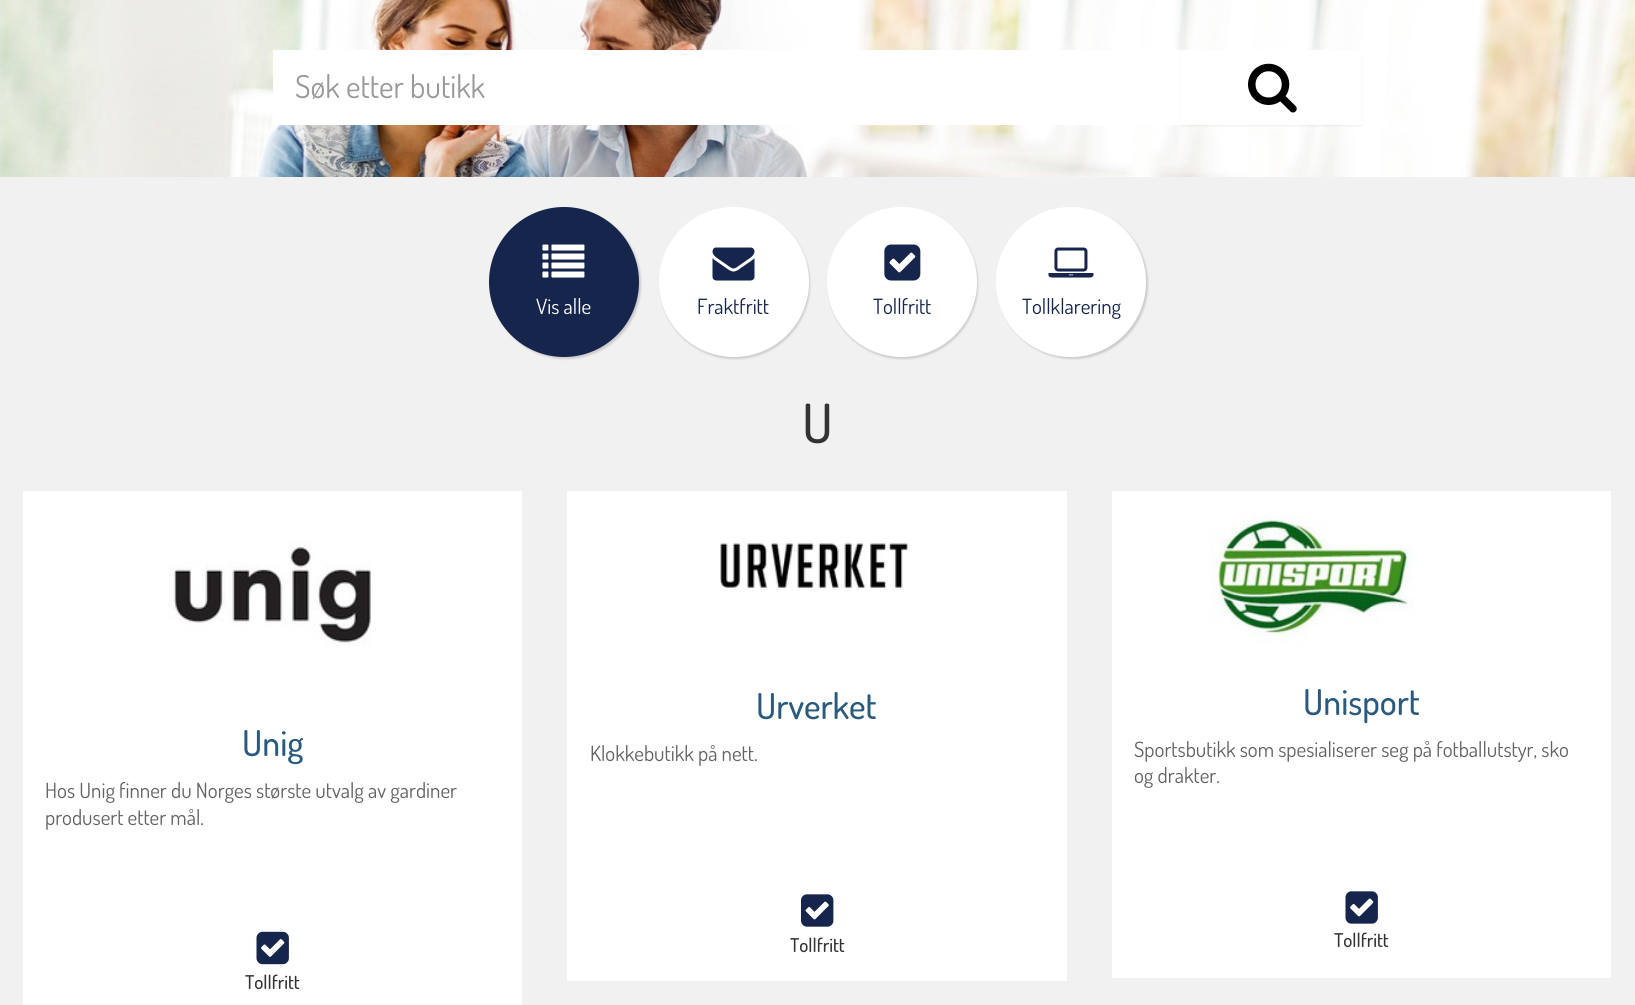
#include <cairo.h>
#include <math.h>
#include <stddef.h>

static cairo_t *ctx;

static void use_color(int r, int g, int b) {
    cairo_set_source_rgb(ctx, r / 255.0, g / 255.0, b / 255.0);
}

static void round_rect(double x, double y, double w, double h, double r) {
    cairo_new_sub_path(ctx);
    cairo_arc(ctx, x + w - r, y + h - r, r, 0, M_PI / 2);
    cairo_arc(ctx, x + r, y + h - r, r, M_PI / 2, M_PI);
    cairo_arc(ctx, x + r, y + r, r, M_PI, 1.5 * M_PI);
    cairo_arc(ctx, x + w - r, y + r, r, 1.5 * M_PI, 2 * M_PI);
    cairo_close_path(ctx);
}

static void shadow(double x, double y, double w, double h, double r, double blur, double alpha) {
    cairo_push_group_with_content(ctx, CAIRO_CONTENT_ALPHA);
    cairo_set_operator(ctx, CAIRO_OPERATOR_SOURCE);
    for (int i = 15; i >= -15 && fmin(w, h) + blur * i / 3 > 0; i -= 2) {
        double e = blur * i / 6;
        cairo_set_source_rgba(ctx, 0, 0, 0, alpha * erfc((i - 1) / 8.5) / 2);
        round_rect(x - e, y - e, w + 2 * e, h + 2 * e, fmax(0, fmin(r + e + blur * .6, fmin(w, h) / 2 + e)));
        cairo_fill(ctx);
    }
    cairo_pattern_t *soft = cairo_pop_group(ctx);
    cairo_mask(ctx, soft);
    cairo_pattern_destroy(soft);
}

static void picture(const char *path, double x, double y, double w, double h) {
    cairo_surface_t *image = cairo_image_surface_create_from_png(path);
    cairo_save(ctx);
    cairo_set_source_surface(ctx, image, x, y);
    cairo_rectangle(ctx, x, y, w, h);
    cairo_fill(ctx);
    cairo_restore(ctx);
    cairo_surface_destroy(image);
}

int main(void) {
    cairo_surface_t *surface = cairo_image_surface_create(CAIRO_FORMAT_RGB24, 1635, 1005);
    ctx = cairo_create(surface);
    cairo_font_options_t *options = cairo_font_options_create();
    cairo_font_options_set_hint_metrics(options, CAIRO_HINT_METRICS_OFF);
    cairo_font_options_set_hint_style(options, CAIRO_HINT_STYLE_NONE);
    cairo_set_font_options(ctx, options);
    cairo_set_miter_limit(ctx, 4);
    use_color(241, 241, 241);
    cairo_paint(ctx);
    picture("img1.png", 0, 0, 1635, 177);
    use_color(255, 255, 255);
    cairo_rectangle(ctx, 273, 50, 908, 75);
    cairo_fill(ctx);
    cairo_select_font_face(ctx, "Dosis", CAIRO_FONT_SLANT_NORMAL, CAIRO_FONT_WEIGHT_NORMAL);
    cairo_set_font_size(ctx, 31.5);
    use_color(153, 153, 153);
    cairo_move_to(ctx, 295, 98);
    cairo_show_text(ctx, "Søk etter butikk");
    use_color(0, 0, 0);
    shadow(1181, 51, 181, 75, 0, 1, 0.07);
    use_color(255, 255, 255);
    cairo_rectangle(ctx, 1181, 50, 181, 75);
    cairo_fill(ctx);
    picture("img2.png", 1248, 63, 49, 50);
    use_color(204, 204, 204);
    shadow(491, 209, 150, 150, 75, 1, 1);
    use_color(22, 37, 76);
    cairo_arc(ctx, 564, 282, 75, 0, 2 * M_PI);
    cairo_fill(ctx);
    picture("img3.png", 542, 244, 43, 34);
    cairo_set_font_size(ctx, 21);
    use_color(255, 255, 255);
    cairo_move_to(ctx, 536, 314);
    cairo_show_text(ctx, "Vis alle");
    use_color(204, 204, 204);
    shadow(660, 209, 150, 150, 75, 1, 1);
    use_color(255, 255, 255);
    cairo_arc(ctx, 734, 282, 75, 0, 2 * M_PI);
    cairo_fill(ctx);
    picture("img4.png", 712, 247, 43, 34);
    use_color(22, 37, 76);
    cairo_move_to(ctx, 697, 314);
    cairo_show_text(ctx, "Fraktfritt");
    use_color(204, 204, 204);
    shadow(828, 209, 150, 150, 75, 1, 1);
    use_color(255, 255, 255);
    cairo_arc(ctx, 902, 282, 75, 0, 2 * M_PI);
    cairo_fill(ctx);
    picture("img5.png", 884, 244, 37, 37);
    use_color(22, 37, 76);
    cairo_move_to(ctx, 873, 314);
    cairo_show_text(ctx, "Tollfritt");
    use_color(204, 204, 204);
    shadow(998, 209, 150, 150, 75, 1, 1);
    use_color(255, 255, 255);
    cairo_arc(ctx, 1071, 282, 75, 0, 2 * M_PI);
    cairo_fill(ctx);
    picture("img6.png", 1048, 247, 46, 31);
    use_color(22, 37, 76);
    cairo_move_to(ctx, 1022, 314);
    cairo_show_text(ctx, "Tollklarering");
    cairo_select_font_face(ctx, "Dosis Medium", CAIRO_FONT_SLANT_NORMAL, CAIRO_FONT_WEIGHT_NORMAL);
    cairo_set_font_size(ctx, 54);
    use_color(51, 51, 51);
    cairo_move_to(ctx, 802, 443);
    cairo_show_text(ctx, "U");
    use_color(255, 255, 255);
    cairo_rectangle(ctx, 23, 491, 499, 514);
    cairo_fill(ctx);
    picture("img7.png", 168, 539, 204, 107);
    cairo_set_font_size(ctx, 35.5);
    use_color(42, 90, 126);
    cairo_move_to(ctx, 242, 756);
    cairo_show_text(ctx, "Unig");
    cairo_select_font_face(ctx, "Dosis", CAIRO_FONT_SLANT_NORMAL, CAIRO_FONT_WEIGHT_NORMAL);
    cairo_set_font_size(ctx, 21);
    use_color(100, 99, 99);
    cairo_move_to(ctx, 45, 798);
    cairo_show_text(ctx, "Hos Unig finner du Norges største utvalg av gardiner");
    cairo_move_to(ctx, 45, 825);
    cairo_show_text(ctx, "produsert etter mål.");
    picture("img8.png", 256, 931, 33, 34);
    cairo_select_font_face(ctx, "Dosis Medium", CAIRO_FONT_SLANT_NORMAL, CAIRO_FONT_WEIGHT_NORMAL);
    cairo_set_font_size(ctx, 19);
    use_color(51, 51, 51);
    cairo_move_to(ctx, 245, 989);
    cairo_show_text(ctx, "Tollfritt");
    use_color(255, 255, 255);
    cairo_rectangle(ctx, 567, 491, 500, 490);
    cairo_fill(ctx);
    picture("img9.png", 720, 541, 190, 49);
    cairo_set_font_size(ctx, 35.5);
    use_color(42, 90, 126);
    cairo_move_to(ctx, 756, 719);
    cairo_show_text(ctx, "Urverket");
    cairo_select_font_face(ctx, "Dosis", CAIRO_FONT_SLANT_NORMAL, CAIRO_FONT_WEIGHT_NORMAL);
    cairo_set_font_size(ctx, 21);
    use_color(100, 99, 99);
    cairo_move_to(ctx, 590, 761);
    cairo_show_text(ctx, "Klokkebutikk på nett.");
    picture("img10.png", 801, 894, 33, 33);
    cairo_select_font_face(ctx, "Dosis Medium", CAIRO_FONT_SLANT_NORMAL, CAIRO_FONT_WEIGHT_NORMAL);
    cairo_set_font_size(ctx, 19);
    use_color(51, 51, 51);
    cairo_move_to(ctx, 790, 952);
    cairo_show_text(ctx, "Tollfritt");
    use_color(255, 255, 255);
    cairo_rectangle(ctx, 1112, 491, 499, 487);
    cairo_fill(ctx);
    picture("img11.png", 1210, 513, 208, 131);
    cairo_set_font_size(ctx, 35.5);
    use_color(42, 90, 126);
    cairo_move_to(ctx, 1303, 715);
    cairo_show_text(ctx, "Unisport");
    cairo_select_font_face(ctx, "Dosis", CAIRO_FONT_SLANT_NORMAL, CAIRO_FONT_WEIGHT_NORMAL);
    cairo_set_font_size(ctx, 21);
    use_color(100, 99, 99);
    cairo_move_to(ctx, 1134, 757);
    cairo_show_text(ctx, "Sportsbutikk som spesialiserer seg på fotballutstyr, sko");
    cairo_move_to(ctx, 1134, 783);
    cairo_show_text(ctx, "og drakter.");
    picture("img12.png", 1345, 891, 33, 33);
    cairo_select_font_face(ctx, "Dosis Medium", CAIRO_FONT_SLANT_NORMAL, CAIRO_FONT_WEIGHT_NORMAL);
    cairo_set_font_size(ctx, 19);
    use_color(51, 51, 51);
    cairo_move_to(ctx, 1334, 947);
    cairo_show_text(ctx, "Tollfritt");
    cairo_surface_write_to_png(surface, "result.png");
    cairo_font_options_destroy(options);
    cairo_destroy(ctx);
    cairo_surface_destroy(surface);
    return 0;
}
